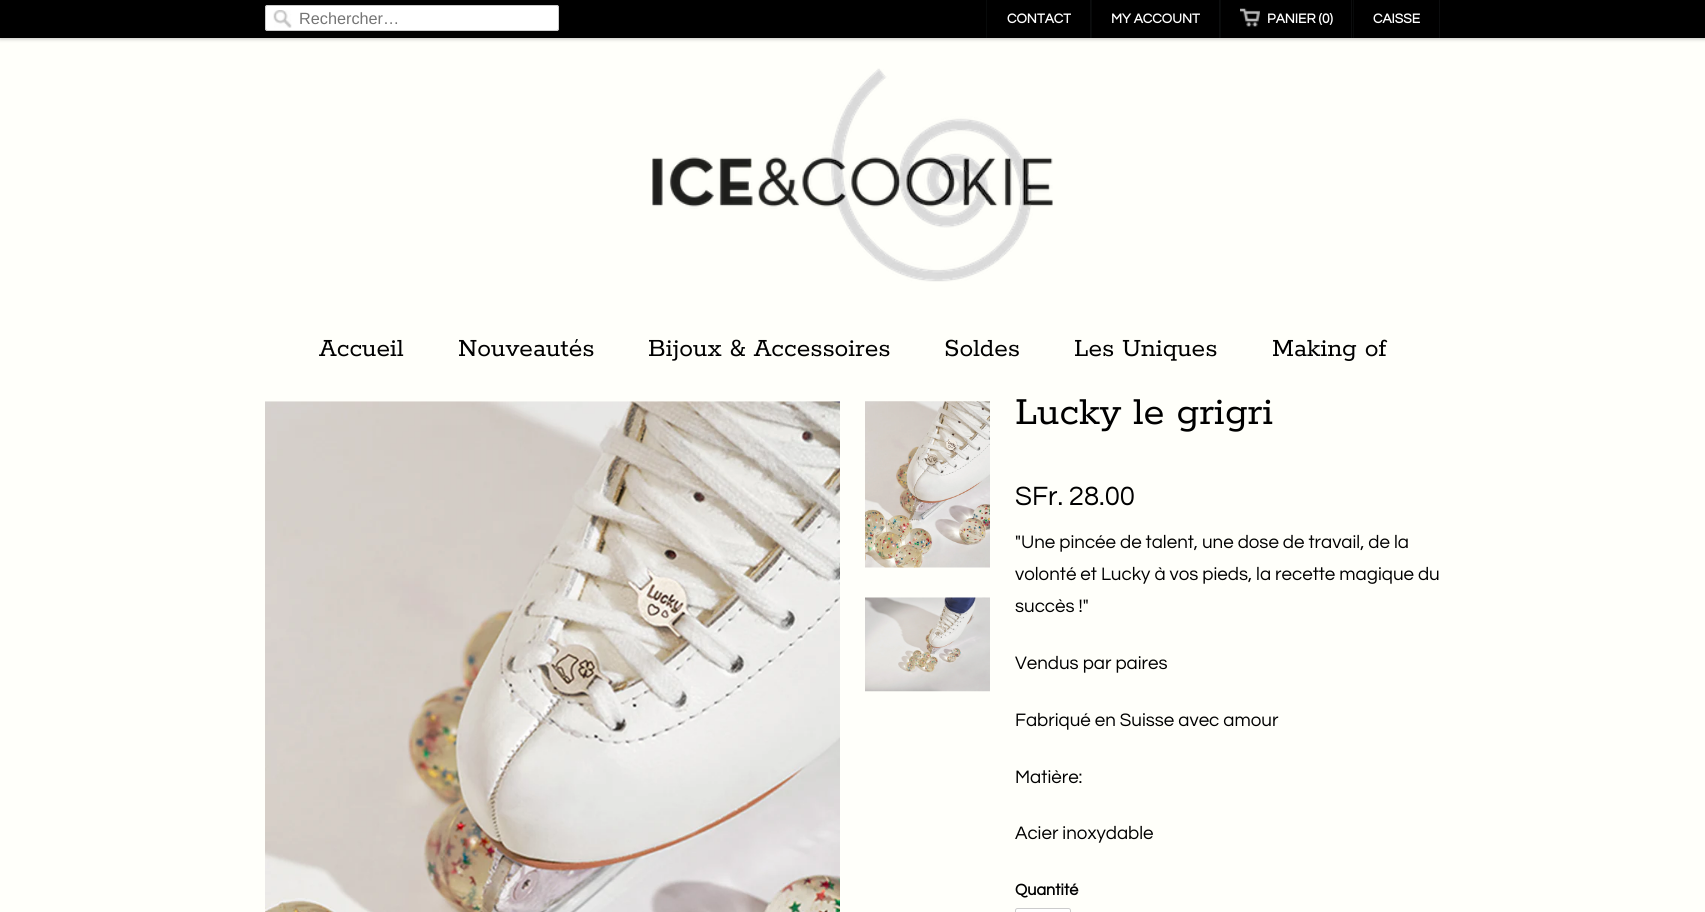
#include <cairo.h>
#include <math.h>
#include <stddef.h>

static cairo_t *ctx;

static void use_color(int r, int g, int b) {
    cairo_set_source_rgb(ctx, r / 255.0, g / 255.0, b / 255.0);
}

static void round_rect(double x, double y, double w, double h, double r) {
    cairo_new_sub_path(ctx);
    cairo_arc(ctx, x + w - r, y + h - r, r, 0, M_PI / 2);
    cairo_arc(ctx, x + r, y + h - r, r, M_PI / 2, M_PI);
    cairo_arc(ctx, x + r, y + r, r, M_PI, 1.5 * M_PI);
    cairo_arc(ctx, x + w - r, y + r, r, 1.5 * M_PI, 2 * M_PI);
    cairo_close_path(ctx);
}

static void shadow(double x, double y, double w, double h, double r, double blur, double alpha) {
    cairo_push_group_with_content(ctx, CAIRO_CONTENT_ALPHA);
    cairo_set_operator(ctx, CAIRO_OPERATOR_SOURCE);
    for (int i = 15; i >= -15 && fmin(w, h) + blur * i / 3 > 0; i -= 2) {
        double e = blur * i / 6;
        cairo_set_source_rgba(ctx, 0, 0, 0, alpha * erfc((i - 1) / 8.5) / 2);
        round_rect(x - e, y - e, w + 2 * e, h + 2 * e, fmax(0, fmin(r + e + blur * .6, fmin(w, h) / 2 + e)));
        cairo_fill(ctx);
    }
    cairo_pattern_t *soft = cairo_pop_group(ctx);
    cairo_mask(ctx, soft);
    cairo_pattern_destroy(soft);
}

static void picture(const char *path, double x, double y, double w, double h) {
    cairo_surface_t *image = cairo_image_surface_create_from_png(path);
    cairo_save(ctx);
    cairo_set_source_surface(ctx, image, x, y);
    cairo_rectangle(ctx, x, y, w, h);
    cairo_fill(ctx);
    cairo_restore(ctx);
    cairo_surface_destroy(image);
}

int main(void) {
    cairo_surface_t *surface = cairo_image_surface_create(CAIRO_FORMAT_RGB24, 1705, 912);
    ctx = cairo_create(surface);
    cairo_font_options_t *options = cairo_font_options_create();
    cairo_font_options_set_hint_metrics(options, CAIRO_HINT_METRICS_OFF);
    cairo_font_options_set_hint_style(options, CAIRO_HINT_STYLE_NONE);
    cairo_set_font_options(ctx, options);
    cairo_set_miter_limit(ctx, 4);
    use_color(255, 255, 250);
    cairo_paint(ctx);
    use_color(0, 0, 0);
    shadow(0, 1, 1705, 38, 0, 2, 0.25);
    use_color(0, 0, 0);
    cairo_rectangle(ctx, 0, 0, 1705, 38);
    cairo_fill(ctx);
    use_color(255, 255, 255);
    round_rect(265, 5, 294, 26, 2.5);
    cairo_fill(ctx);
    picture("img1.png", 273, 10, 19, 18);
    round_rect(265.5, 5.5, 293, 25, 2);
    use_color(204, 204, 204);
    cairo_set_line_width(ctx, 1);
    cairo_stroke(ctx);
    cairo_select_font_face(ctx, "Liberation Sans", CAIRO_FONT_SLANT_NORMAL, CAIRO_FONT_WEIGHT_NORMAL);
    cairo_set_font_size(ctx, 16.25);
    use_color(117, 117, 117);
    cairo_move_to(ctx, 299, 24);
    cairo_show_text(ctx, "Rechercher…");
    use_color(12, 13, 14);
    cairo_rectangle(ctx, 1090, 0, 1, 38);
    cairo_fill(ctx);
    use_color(8, 10, 10);
    cairo_rectangle(ctx, 986, 0, 1, 38);
    cairo_fill(ctx);
    cairo_select_font_face(ctx, "Questrial", CAIRO_FONT_SLANT_NORMAL, CAIRO_FONT_WEIGHT_BOLD);
    cairo_set_font_size(ctx, 13.75);
    use_color(255, 255, 255);
    cairo_move_to(ctx, 1007, 23);
    cairo_show_text(ctx, "CONTACT");
    use_color(12, 13, 14);
    cairo_rectangle(ctx, 1219, 0, 1, 38);
    cairo_fill(ctx);
    use_color(8, 10, 10);
    cairo_rectangle(ctx, 1091, 0, 1, 38);
    cairo_fill(ctx);
    use_color(255, 255, 255);
    cairo_move_to(ctx, 1111, 23);
    cairo_show_text(ctx, "MY ACCOUNT");
    use_color(12, 13, 14);
    cairo_rectangle(ctx, 1351, 0, 1, 38);
    cairo_fill(ctx);
    use_color(8, 10, 10);
    cairo_rectangle(ctx, 1220, 0, 1, 38);
    cairo_fill(ctx);
    picture("img2.png", 1240, 8, 20, 19);
    use_color(255, 255, 255);
    cairo_move_to(ctx, 1267, 23);
    cairo_show_text(ctx, "PANIER (0)");
    use_color(12, 13, 14);
    cairo_rectangle(ctx, 1439, 0, 1, 38);
    cairo_fill(ctx);
    use_color(8, 10, 10);
    cairo_rectangle(ctx, 1353, 0, 1, 38);
    cairo_fill(ctx);
    use_color(255, 255, 255);
    cairo_move_to(ctx, 1373, 23);
    cairo_show_text(ctx, "CAISSE");
    picture("img3.png", 652, 68, 401, 214);
    cairo_select_font_face(ctx, "Rokkitt", CAIRO_FONT_SLANT_NORMAL, CAIRO_FONT_WEIGHT_NORMAL);
    cairo_set_font_size(ctx, 27.5);
    use_color(0, 0, 0);
    cairo_move_to(ctx, 319, 356);
    cairo_show_text(ctx, "Accueil");
    cairo_move_to(ctx, 458, 356);
    cairo_show_text(ctx, "Nouveautés");
    cairo_move_to(ctx, 648, 356);
    cairo_show_text(ctx, "Bijoux & Accessoires");
    cairo_move_to(ctx, 944, 356);
    cairo_show_text(ctx, "Soldes");
    cairo_move_to(ctx, 1074, 356);
    cairo_show_text(ctx, "Les Uniques");
    cairo_move_to(ctx, 1272, 356);
    cairo_show_text(ctx, "Making of");
    picture("img4.png", 265, 401, 575, 511);
    picture("img5.png", 865, 401, 125, 167);
    picture("img6.png", 865, 597, 125, 95);
    cairo_set_font_size(ctx, 42.5);
    cairo_move_to(ctx, 1015, 424);
    cairo_show_text(ctx, "Lucky le grigri");
    cairo_select_font_face(ctx, "Questrial", CAIRO_FONT_SLANT_NORMAL, CAIRO_FONT_WEIGHT_NORMAL);
    cairo_set_font_size(ctx, 27.5);
    cairo_move_to(ctx, 1015, 505);
    cairo_show_text(ctx, "SFr. 28.00");
    cairo_set_font_size(ctx, 18.75);
    cairo_move_to(ctx, 1015, 548);
    cairo_show_text(ctx, "\"Une pincée de talent, une dose de travail, de la");
    cairo_move_to(ctx, 1015, 580);
    cairo_show_text(ctx, "volonté et Lucky à vos pieds, la recette magique du");
    cairo_move_to(ctx, 1015, 612);
    cairo_show_text(ctx, "succès !\"");
    cairo_move_to(ctx, 1015, 669);
    cairo_show_text(ctx, "Vendus par paires");
    cairo_move_to(ctx, 1015, 726);
    cairo_show_text(ctx, "Fabriqué en Suisse avec amour");
    cairo_move_to(ctx, 1015, 783);
    cairo_show_text(ctx, "Matière:");
    cairo_move_to(ctx, 1015, 839);
    cairo_show_text(ctx, "Acier inoxydable");
    cairo_select_font_face(ctx, "Questrial", CAIRO_FONT_SLANT_NORMAL, CAIRO_FONT_WEIGHT_BOLD);
    cairo_set_font_size(ctx, 16.25);
    cairo_move_to(ctx, 1015, 895);
    cairo_show_text(ctx, "Quantité");
    use_color(255, 255, 255);
    round_rect(1015.5, 908.5, 55, 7, 2);
    cairo_fill_preserve(ctx);
    use_color(204, 204, 204);
    cairo_stroke(ctx);
    cairo_surface_write_to_png(surface, "result.png");
    cairo_font_options_destroy(options);
    cairo_destroy(ctx);
    cairo_surface_destroy(surface);
    return 0;
}
